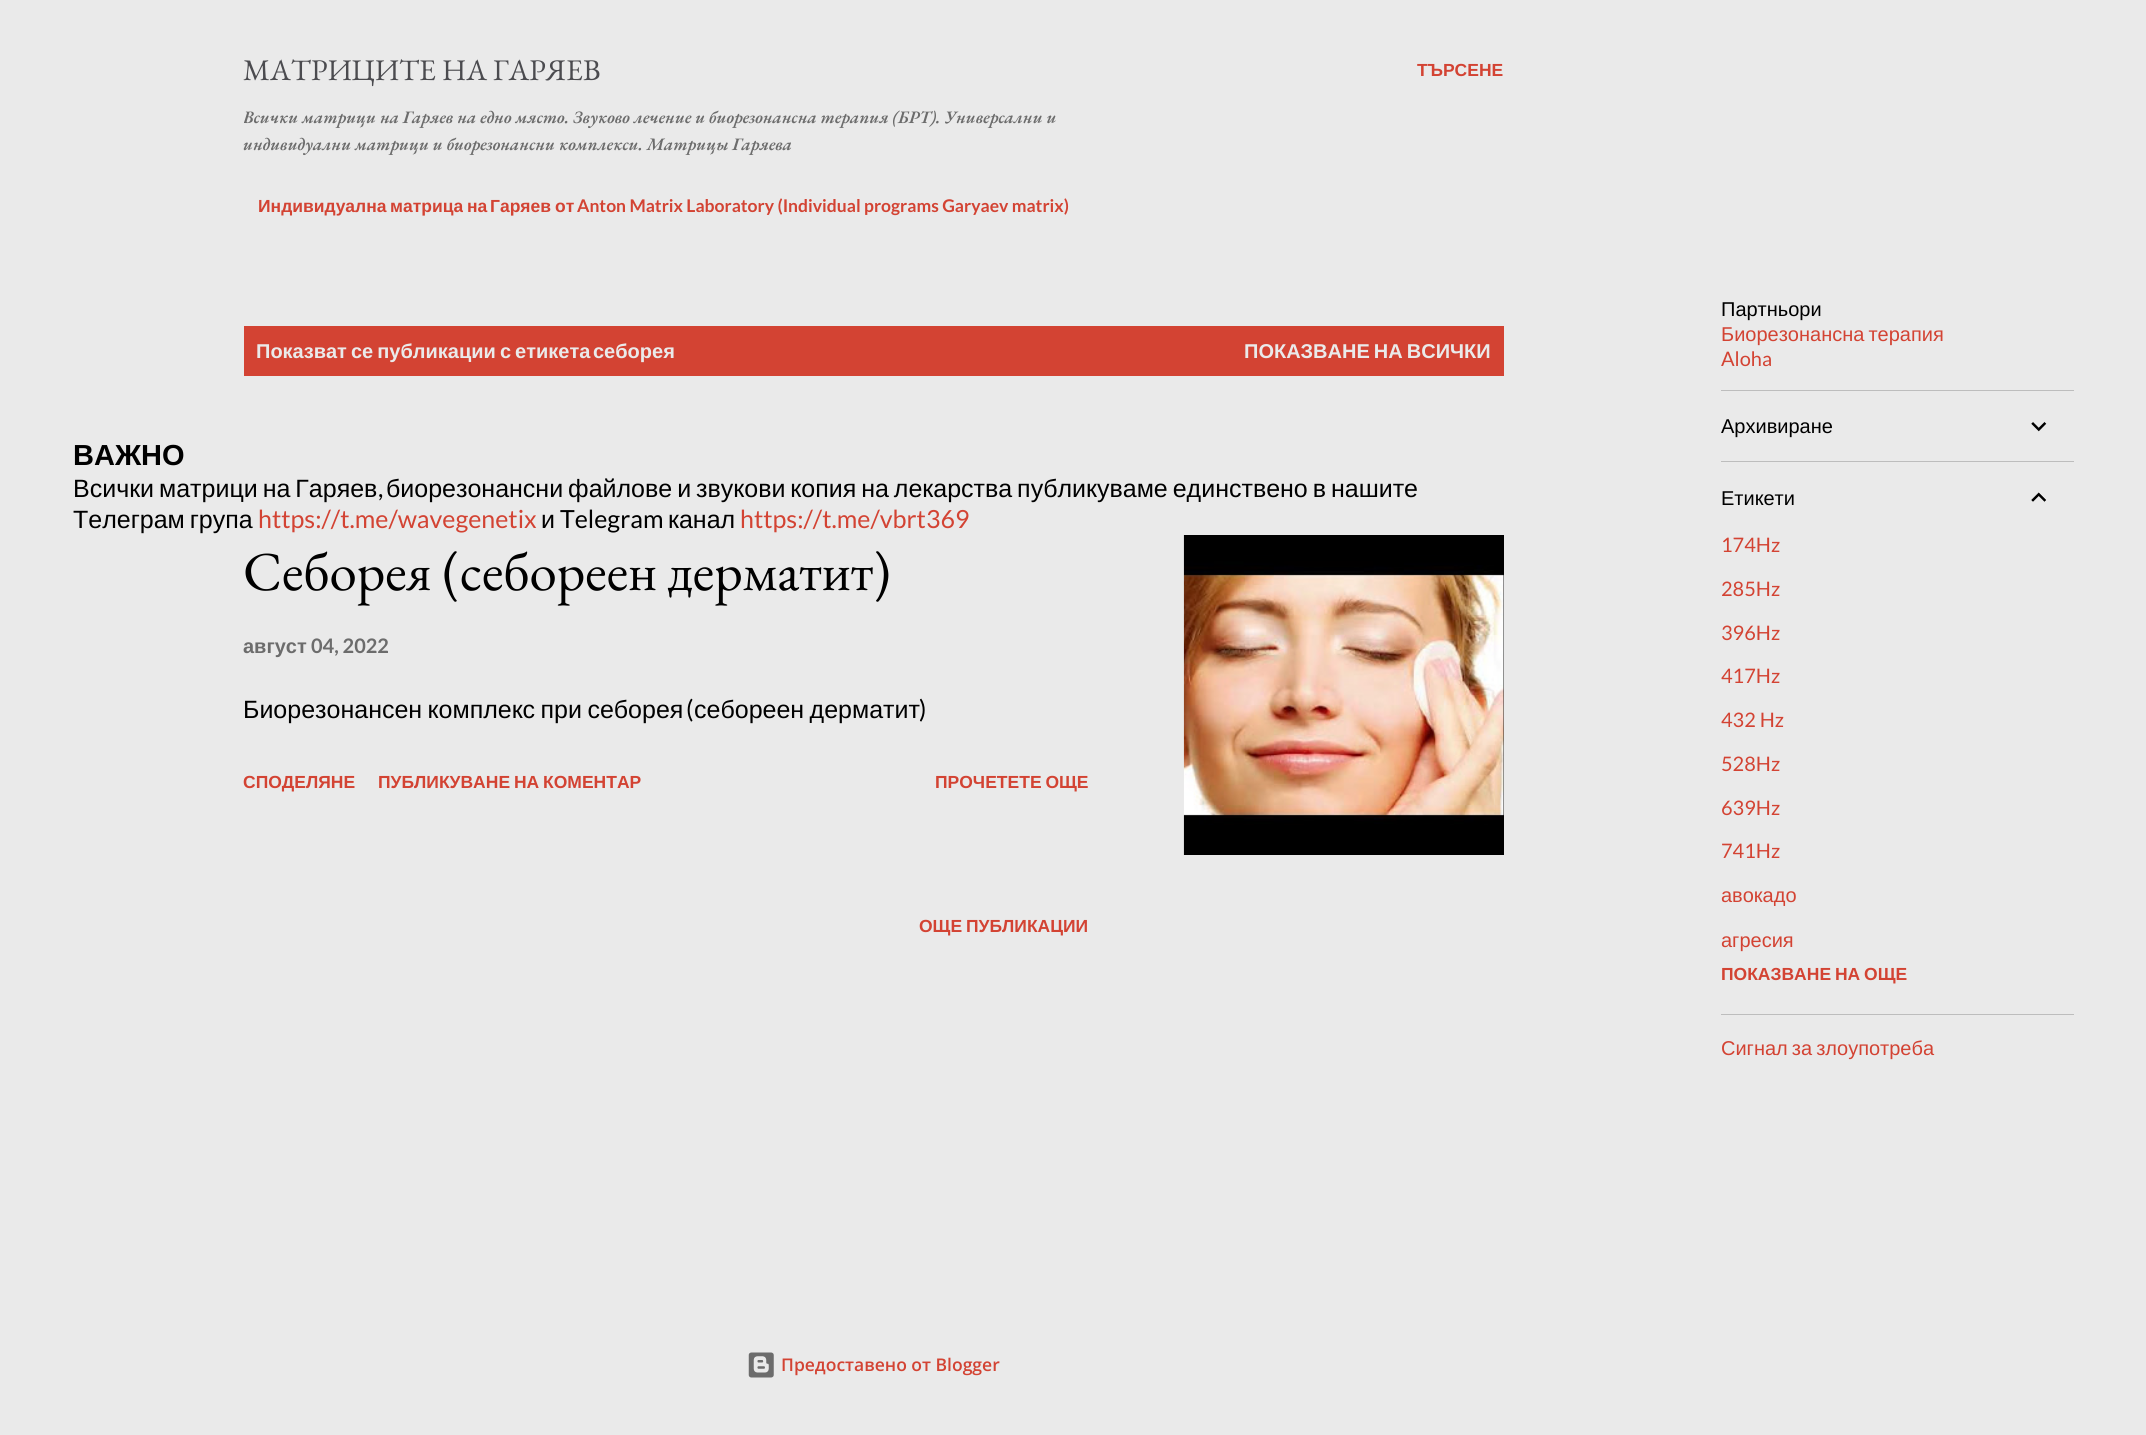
#include <cairo.h>
#include <math.h>
#include <stddef.h>

static cairo_t *ctx;

static void use_color(int r, int g, int b) {
    cairo_set_source_rgb(ctx, r / 255.0, g / 255.0, b / 255.0);
}

static void spaced_text(double x, double y, const char *s, double letter, double word) {
    cairo_move_to(ctx, x, y);
    while (*s) {
        char ch[5] = {0};
        int n = 0;
        do ch[n++] = *s++; while ((*s & 0xC0) == 0x80);
        cairo_show_text(ctx, ch);
        cairo_rel_move_to(ctx, letter + word * (*ch == ' '), 0);
    }
}

static void picture(const char *path, double x, double y, double w, double h) {
    cairo_surface_t *image = cairo_image_surface_create_from_png(path);
    cairo_save(ctx);
    cairo_set_source_surface(ctx, image, x, y);
    cairo_rectangle(ctx, x, y, w, h);
    cairo_fill(ctx);
    cairo_restore(ctx);
    cairo_surface_destroy(image);
}

int main(void) {
    cairo_surface_t *surface = cairo_image_surface_create(CAIRO_FORMAT_RGB24, 2146, 1435);
    ctx = cairo_create(surface);
    cairo_font_options_t *options = cairo_font_options_create();
    cairo_font_options_set_hint_metrics(options, CAIRO_HINT_METRICS_OFF);
    cairo_font_options_set_hint_style(options, CAIRO_HINT_STYLE_NONE);
    cairo_set_font_options(ctx, options);
    cairo_set_miter_limit(ctx, 4);
    use_color(234, 234, 234);
    cairo_paint(ctx);
    cairo_select_font_face(ctx, "EB Garamond", CAIRO_FONT_SLANT_NORMAL, CAIRO_FONT_WEIGHT_NORMAL);
    cairo_set_font_size(ctx, 30);
    use_color(75, 75, 79);
    cairo_move_to(ctx, 243, 80);
    cairo_show_text(ctx, "МАТРИЦИТЕ НА ГАРЯЕВ");
    cairo_save(ctx);
    cairo_rectangle(ctx, 244, 55, 1260, 121);
    cairo_clip(ctx);
    cairo_select_font_face(ctx, "EB Garamond SemiBold", CAIRO_FONT_SLANT_ITALIC, CAIRO_FONT_WEIGHT_NORMAL);
    cairo_set_font_size(ctx, 17.5);
    use_color(108, 108, 108);
    cairo_move_to(ctx, 243, 123);
    cairo_show_text(ctx, "Всички матрици на Гаряев на едно място. Звуково лечение и биорезонансна терапия (БРТ). Универсални и");
    cairo_restore(ctx);
    cairo_select_font_face(ctx, "EB Garamond SemiBold", CAIRO_FONT_SLANT_ITALIC, CAIRO_FONT_WEIGHT_NORMAL);
    cairo_set_font_size(ctx, 17.5);
    use_color(108, 108, 108);
    cairo_move_to(ctx, 243, 150);
    cairo_show_text(ctx, "индивидуални матрици и биорезонансни комплекси. Матрицы Гаряева");
    cairo_select_font_face(ctx, "Liberation Sans", CAIRO_FONT_SLANT_NORMAL, CAIRO_FONT_WEIGHT_BOLD);
    use_color(211, 67, 51);
    cairo_move_to(ctx, 1417, 76);
    cairo_show_text(ctx, "ТЪРСЕНЕ");
    cairo_move_to(ctx, 258, 212);
    cairo_show_text(ctx, "Индивидуална");
    cairo_move_to(ctx, 390, 212);
    cairo_show_text(ctx, "матрица");
    cairo_move_to(ctx, 467, 212);
    cairo_show_text(ctx, "на");
    cairo_move_to(ctx, 490, 212);
    cairo_show_text(ctx, "Гаряев");
    cairo_move_to(ctx, 555, 212);
    cairo_show_text(ctx, "от");
    cairo_select_font_face(ctx, "Lato", CAIRO_FONT_SLANT_NORMAL, CAIRO_FONT_WEIGHT_BOLD);
    cairo_move_to(ctx, 577, 212);
    cairo_show_text(ctx, "Anton Matrix Laboratory (Individual programs Garyaev matrix)");
    cairo_rectangle(ctx, 244, 326, 1260, 50);
    cairo_fill(ctx);
    cairo_select_font_face(ctx, "Liberation Sans", CAIRO_FONT_SLANT_NORMAL, CAIRO_FONT_WEIGHT_BOLD);
    cairo_set_font_size(ctx, 20);
    use_color(234, 234, 234);
    spaced_text(256, 358, "Показват се публикации с етикета", 0, -1.5);
    cairo_move_to(ctx, 593, 358);
    cairo_show_text(ctx, "себорея");
    spaced_text(1244, 358, "ПОКАЗВАНЕ НА ВСИЧКИ", 0, -1.5);
    cairo_set_font_size(ctx, 29);
    use_color(0, 0, 0);
    cairo_move_to(ctx, 73, 465);
    cairo_show_text(ctx, "ВАЖНО");
    cairo_select_font_face(ctx, "Liberation Sans", CAIRO_FONT_SLANT_NORMAL, CAIRO_FONT_WEIGHT_NORMAL);
    cairo_set_font_size(ctx, 25);
    spaced_text(73, 497, "Всички матрици на Гаряев", 0, -2);
    cairo_select_font_face(ctx, "Lato", CAIRO_FONT_SLANT_NORMAL, CAIRO_FONT_WEIGHT_NORMAL);
    cairo_move_to(ctx, 378, 497);
    cairo_show_text(ctx, ",");
    cairo_select_font_face(ctx, "Liberation Sans", CAIRO_FONT_SLANT_NORMAL, CAIRO_FONT_WEIGHT_NORMAL);
    spaced_text(386, 497, "биорезонансни файлове и звукови копия на лекарства публикуваме единствено в нашите", 0, -2);
    spaced_text(73, 528, "Телеграм група", 0, -2);
    cairo_select_font_face(ctx, "Lato", CAIRO_FONT_SLANT_NORMAL, CAIRO_FONT_WEIGHT_NORMAL);
    use_color(211, 67, 51);
    cairo_move_to(ctx, 258, 528);
    cairo_show_text(ctx, "https://t.me/wavegenetix");
    cairo_select_font_face(ctx, "Liberation Sans", CAIRO_FONT_SLANT_NORMAL, CAIRO_FONT_WEIGHT_NORMAL);
    use_color(0, 0, 0);
    cairo_move_to(ctx, 541, 528);
    cairo_show_text(ctx, "и");
    cairo_select_font_face(ctx, "Lato", CAIRO_FONT_SLANT_NORMAL, CAIRO_FONT_WEIGHT_NORMAL);
    cairo_move_to(ctx, 560, 528);
    cairo_show_text(ctx, "Telegram");
    cairo_select_font_face(ctx, "Liberation Sans", CAIRO_FONT_SLANT_NORMAL, CAIRO_FONT_WEIGHT_NORMAL);
    cairo_move_to(ctx, 668, 528);
    cairo_show_text(ctx, "канал");
    cairo_select_font_face(ctx, "Lato", CAIRO_FONT_SLANT_NORMAL, CAIRO_FONT_WEIGHT_NORMAL);
    use_color(211, 67, 51);
    cairo_move_to(ctx, 740, 528);
    cairo_show_text(ctx, "https://t.me/vbrt369");
    cairo_select_font_face(ctx, "EB Garamond", CAIRO_FONT_SLANT_NORMAL, CAIRO_FONT_WEIGHT_NORMAL);
    cairo_set_font_size(ctx, 55);
    use_color(0, 0, 0);
    cairo_move_to(ctx, 243, 590);
    cairo_show_text(ctx, "Себорея (себореен дерматит)");
    cairo_select_font_face(ctx, "Liberation Sans", CAIRO_FONT_SLANT_NORMAL, CAIRO_FONT_WEIGHT_BOLD);
    cairo_set_font_size(ctx, 20);
    use_color(108, 108, 108);
    cairo_move_to(ctx, 243, 653);
    cairo_show_text(ctx, "август");
    cairo_select_font_face(ctx, "Lato", CAIRO_FONT_SLANT_NORMAL, CAIRO_FONT_WEIGHT_BOLD);
    cairo_move_to(ctx, 311, 653);
    cairo_show_text(ctx, "04, 2022");
    cairo_select_font_face(ctx, "Liberation Sans", CAIRO_FONT_SLANT_NORMAL, CAIRO_FONT_WEIGHT_NORMAL);
    cairo_set_font_size(ctx, 25);
    use_color(0, 0, 0);
    spaced_text(243, 718, "Биорезонансен комплекс при себорея", 0, -1.5);
    cairo_select_font_face(ctx, "Lato", CAIRO_FONT_SLANT_NORMAL, CAIRO_FONT_WEIGHT_NORMAL);
    cairo_move_to(ctx, 686, 718);
    cairo_show_text(ctx, "(");
    cairo_select_font_face(ctx, "Liberation Sans", CAIRO_FONT_SLANT_NORMAL, CAIRO_FONT_WEIGHT_NORMAL);
    spaced_text(694, 718, "себореен дерматит", 0, -1.5);
    cairo_select_font_face(ctx, "Lato", CAIRO_FONT_SLANT_NORMAL, CAIRO_FONT_WEIGHT_NORMAL);
    cairo_move_to(ctx, 919, 718);
    cairo_show_text(ctx, ")");
    cairo_select_font_face(ctx, "Liberation Sans", CAIRO_FONT_SLANT_NORMAL, CAIRO_FONT_WEIGHT_BOLD);
    cairo_set_font_size(ctx, 17.5);
    use_color(211, 67, 51);
    cairo_move_to(ctx, 243, 788);
    cairo_show_text(ctx, "СПОДЕЛЯНЕ");
    spaced_text(378, 788, "ПУБЛИКУВАНЕ НА КОМЕНТАР", 0, -1);
    spaced_text(935, 788, "ПРОЧЕТЕТЕ ОЩЕ", 0, -1);
    use_color(0, 0, 0);
    cairo_rectangle(ctx, 1503, 535, 1, 320);
    cairo_fill(ctx);
    picture("img1.png", 1183, 535, 321, 320);
    use_color(211, 67, 51);
    spaced_text(919, 932, "ОЩЕ ПУБЛИКАЦИИ", 0, -1);
    cairo_select_font_face(ctx, "Liberation Sans", CAIRO_FONT_SLANT_NORMAL, CAIRO_FONT_WEIGHT_NORMAL);
    cairo_set_font_size(ctx, 20);
    use_color(0, 0, 0);
    cairo_move_to(ctx, 1721, 316);
    cairo_show_text(ctx, "Партньори");
    use_color(211, 67, 51);
    spaced_text(1721, 341, "Биорезонансна терапия", 0, -1.5);
    cairo_select_font_face(ctx, "Lato", CAIRO_FONT_SLANT_NORMAL, CAIRO_FONT_WEIGHT_NORMAL);
    cairo_move_to(ctx, 1721, 366);
    cairo_show_text(ctx, "Aloha");
    use_color(189, 189, 189);
    cairo_rectangle(ctx, 1721, 390, 353, 1);
    cairo_fill(ctx);
    cairo_select_font_face(ctx, "Liberation Sans", CAIRO_FONT_SLANT_NORMAL, CAIRO_FONT_WEIGHT_NORMAL);
    use_color(0, 0, 0);
    cairo_move_to(ctx, 1721, 433);
    cairo_show_text(ctx, "Архивиране");
    picture("img2.png", 2031, 422, 16, 10);
    use_color(189, 189, 189);
    cairo_rectangle(ctx, 1721, 461, 353, 1);
    cairo_fill(ctx);
    use_color(0, 0, 0);
    cairo_move_to(ctx, 1721, 505);
    cairo_show_text(ctx, "Етикети");
    picture("img3.png", 2031, 492, 15, 10);
    cairo_select_font_face(ctx, "Lato", CAIRO_FONT_SLANT_NORMAL, CAIRO_FONT_WEIGHT_NORMAL);
    use_color(211, 67, 51);
    cairo_move_to(ctx, 1721, 552);
    cairo_show_text(ctx, "174Hz");
    cairo_move_to(ctx, 1721, 596);
    cairo_show_text(ctx, "285Hz");
    cairo_move_to(ctx, 1721, 640);
    cairo_show_text(ctx, "396Hz");
    cairo_move_to(ctx, 1721, 683);
    cairo_show_text(ctx, "417Hz");
    cairo_move_to(ctx, 1721, 727);
    cairo_show_text(ctx, "432 Hz");
    cairo_move_to(ctx, 1721, 771);
    cairo_show_text(ctx, "528Hz");
    cairo_move_to(ctx, 1721, 815);
    cairo_show_text(ctx, "639Hz");
    cairo_move_to(ctx, 1721, 858);
    cairo_show_text(ctx, "741Hz");
    cairo_select_font_face(ctx, "Liberation Sans", CAIRO_FONT_SLANT_NORMAL, CAIRO_FONT_WEIGHT_NORMAL);
    cairo_move_to(ctx, 1721, 902);
    cairo_show_text(ctx, "авокадо");
    cairo_move_to(ctx, 1721, 947);
    cairo_show_text(ctx, "агресия");
    cairo_select_font_face(ctx, "Liberation Sans", CAIRO_FONT_SLANT_NORMAL, CAIRO_FONT_WEIGHT_BOLD);
    cairo_set_font_size(ctx, 17.5);
    spaced_text(1721, 980, "ПОКАЗВАНЕ НА ОЩЕ", 0, -1);
    use_color(189, 189, 189);
    cairo_rectangle(ctx, 1721, 1014, 353, 1);
    cairo_fill(ctx);
    cairo_select_font_face(ctx, "Liberation Sans", CAIRO_FONT_SLANT_NORMAL, CAIRO_FONT_WEIGHT_NORMAL);
    cairo_set_font_size(ctx, 20);
    use_color(211, 67, 51);
    spaced_text(1721, 1055, "Сигнал за злоупотреба", 0, -1.5);
    picture("img4.png", 748, 1352, 26, 26);
    cairo_select_font_face(ctx, "Open Sans SemiBold", CAIRO_FONT_SLANT_NORMAL, CAIRO_FONT_WEIGHT_NORMAL);
    cairo_set_font_size(ctx, 17.5);
    cairo_move_to(ctx, 781, 1371);
    cairo_show_text(ctx, "Предоставено от Blogger");
    cairo_surface_write_to_png(surface, "result.png");
    cairo_font_options_destroy(options);
    cairo_destroy(ctx);
    cairo_surface_destroy(surface);
    return 0;
}
